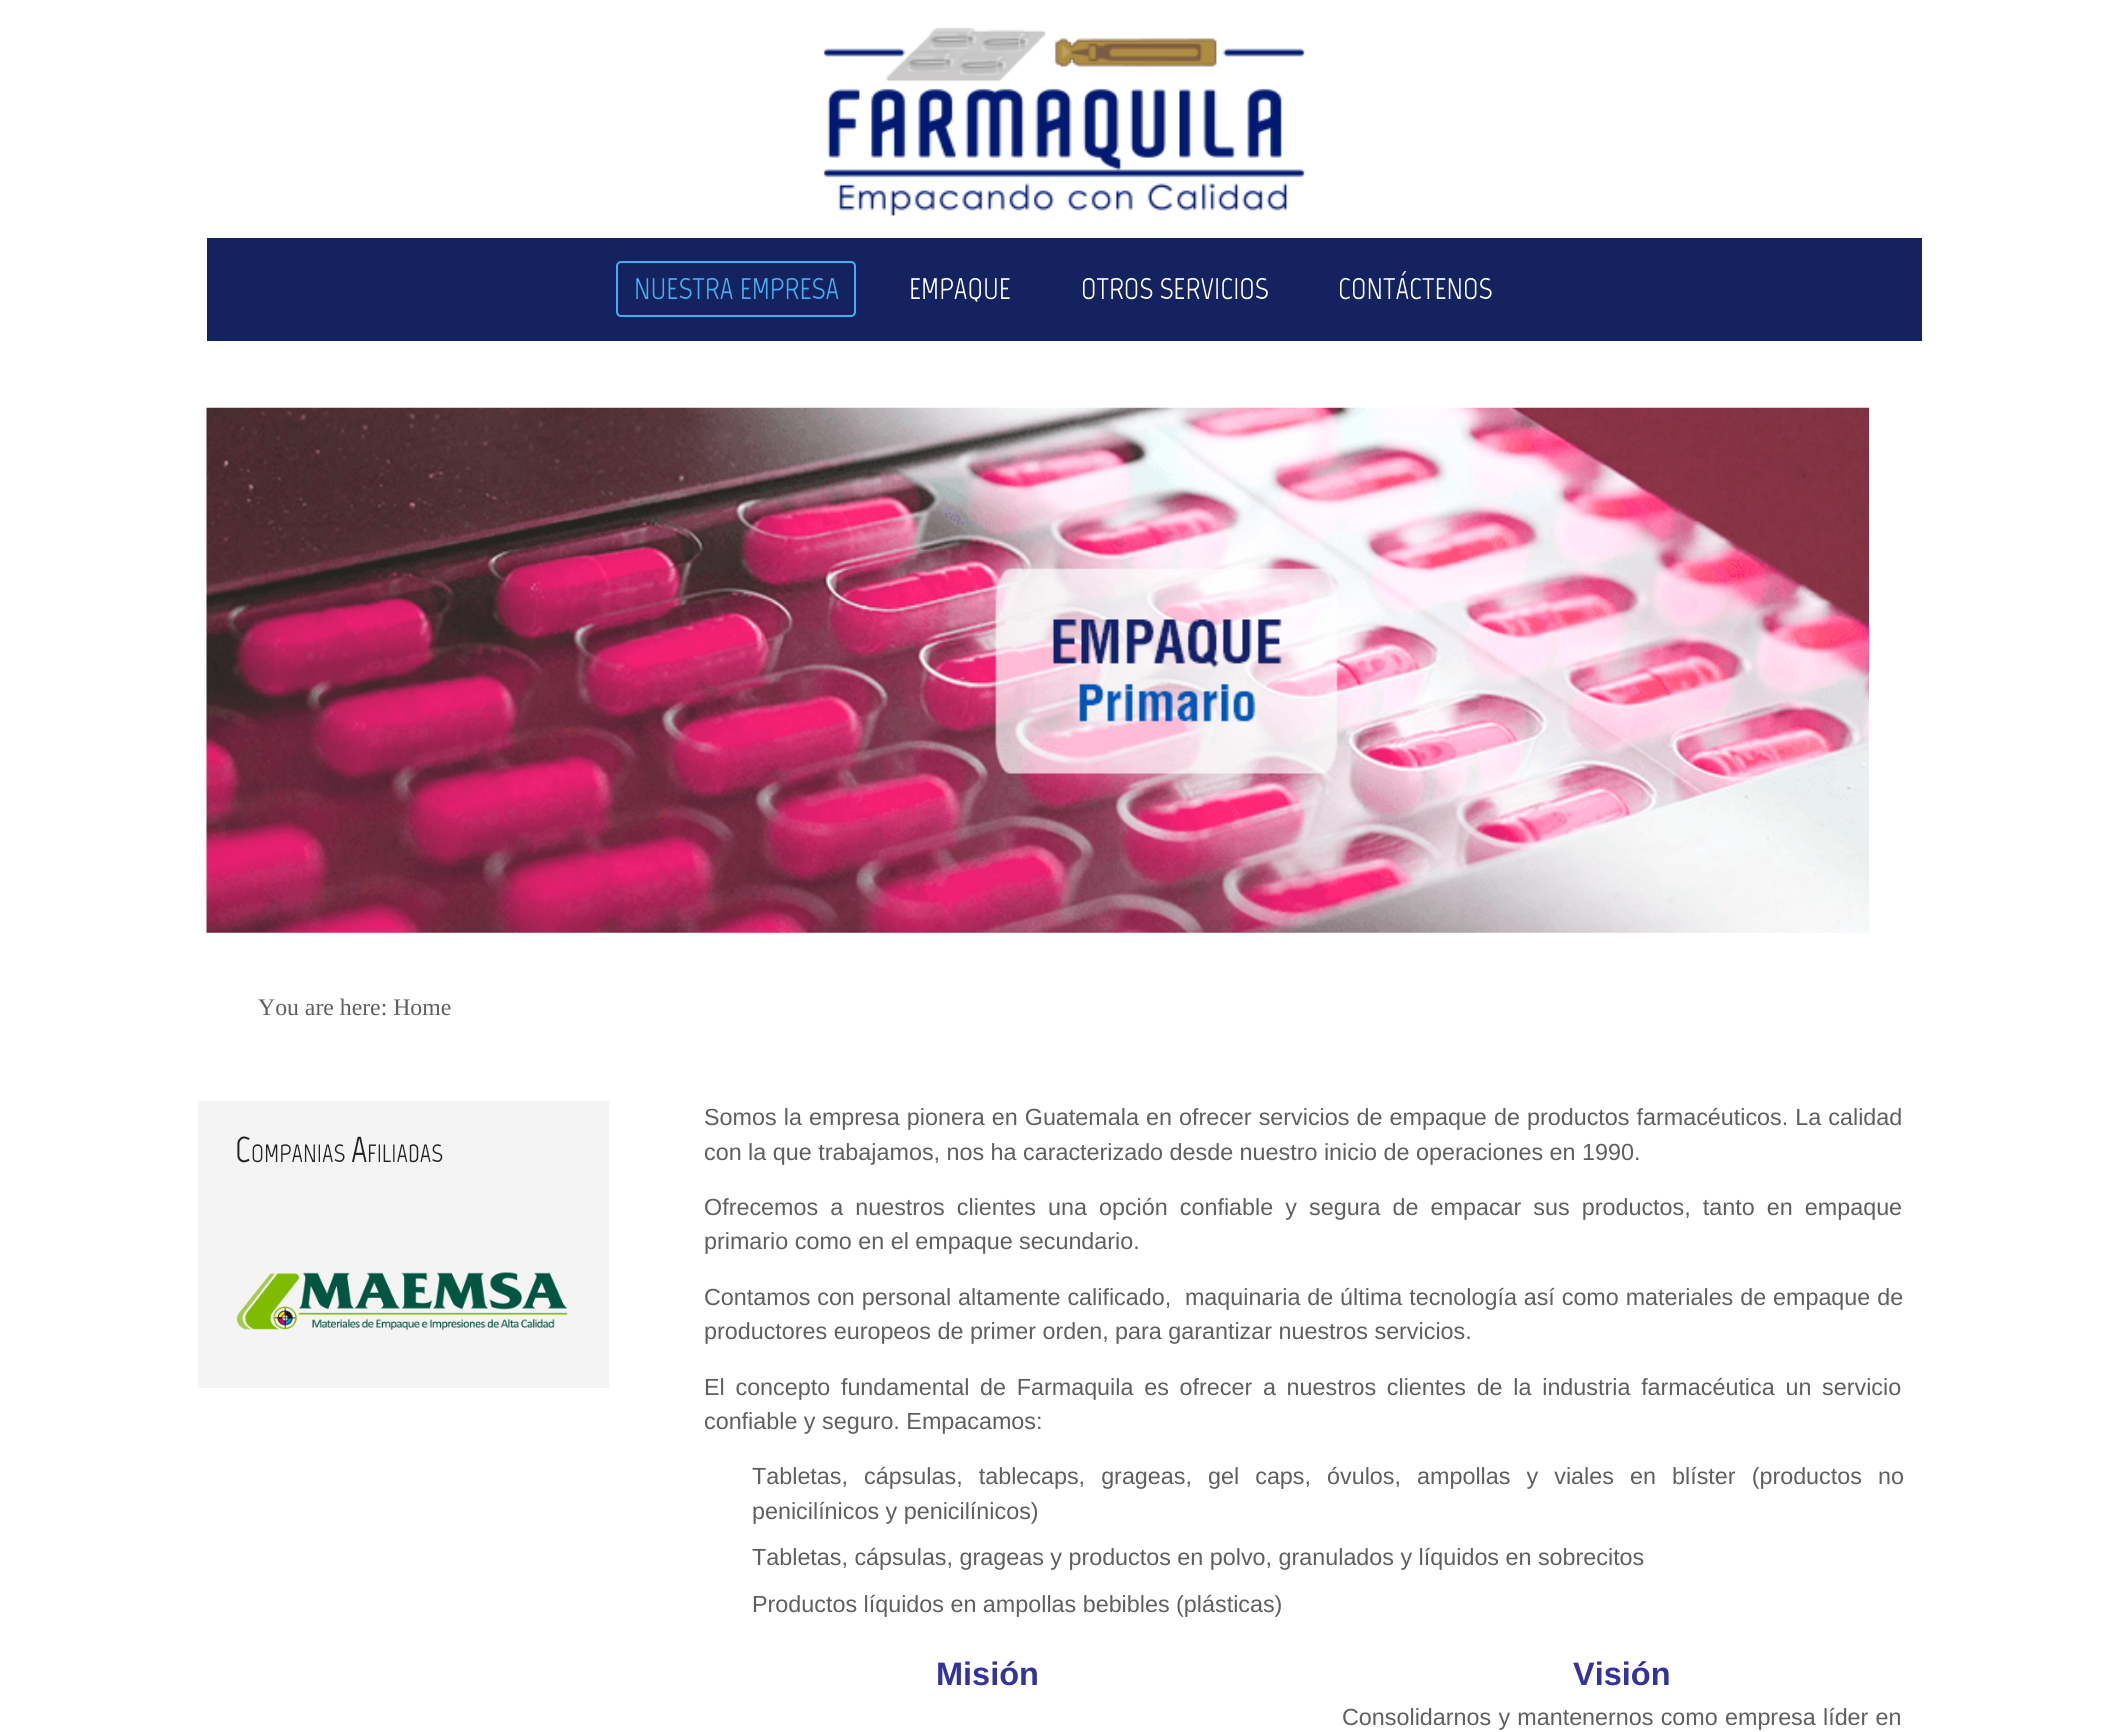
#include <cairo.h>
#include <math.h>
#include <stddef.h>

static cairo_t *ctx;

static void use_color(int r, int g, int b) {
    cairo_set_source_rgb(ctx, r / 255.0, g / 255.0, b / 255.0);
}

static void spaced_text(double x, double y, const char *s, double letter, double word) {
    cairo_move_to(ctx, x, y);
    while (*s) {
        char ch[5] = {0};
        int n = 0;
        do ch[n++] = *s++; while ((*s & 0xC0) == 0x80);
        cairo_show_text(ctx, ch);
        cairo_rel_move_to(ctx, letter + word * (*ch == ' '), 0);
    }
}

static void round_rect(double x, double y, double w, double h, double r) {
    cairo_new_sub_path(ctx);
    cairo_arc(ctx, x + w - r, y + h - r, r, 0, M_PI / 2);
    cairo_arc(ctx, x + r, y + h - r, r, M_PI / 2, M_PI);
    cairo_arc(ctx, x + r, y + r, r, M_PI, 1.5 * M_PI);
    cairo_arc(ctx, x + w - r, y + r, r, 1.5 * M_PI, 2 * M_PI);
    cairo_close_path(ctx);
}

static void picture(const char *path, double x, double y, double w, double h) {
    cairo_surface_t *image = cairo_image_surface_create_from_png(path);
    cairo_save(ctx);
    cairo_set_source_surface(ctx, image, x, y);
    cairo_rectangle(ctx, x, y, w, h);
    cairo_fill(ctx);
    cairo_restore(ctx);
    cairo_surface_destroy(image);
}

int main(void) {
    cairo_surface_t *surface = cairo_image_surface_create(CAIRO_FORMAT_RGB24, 2126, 1732);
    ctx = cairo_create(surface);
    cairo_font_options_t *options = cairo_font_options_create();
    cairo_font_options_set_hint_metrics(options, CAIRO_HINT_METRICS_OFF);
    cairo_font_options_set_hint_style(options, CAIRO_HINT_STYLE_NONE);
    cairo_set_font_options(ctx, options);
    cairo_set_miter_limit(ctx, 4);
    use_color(255, 255, 255);
    cairo_paint(ctx);
    picture("img1.png", 823, 27, 482, 189);
    use_color(20, 34, 95);
    cairo_rectangle(ctx, 207, 238, 1715, 103);
    cairo_fill(ctx);
    round_rect(617, 262, 238, 54, 4);
    use_color(69, 175, 238);
    cairo_stroke(ctx);
    cairo_select_font_face(ctx, "Marvel", CAIRO_FONT_SLANT_NORMAL, CAIRO_FONT_WEIGHT_NORMAL);
    cairo_set_font_size(ctx, 29.75);
    cairo_move_to(ctx, 634, 299);
    cairo_show_text(ctx, "NUESTRA EMPRESA");
    use_color(255, 255, 255);
    cairo_move_to(ctx, 909, 299);
    cairo_show_text(ctx, "EMPAQUE");
    cairo_move_to(ctx, 1081, 299);
    cairo_show_text(ctx, "OTROS SERVICIOS");
    cairo_move_to(ctx, 1338, 299);
    cairo_show_text(ctx, "CONTÁCTENOS");
    picture("img2.png", 206, 407, 1663, 526);
    cairo_select_font_face(ctx, "Liberation Serif", CAIRO_FONT_SLANT_NORMAL, CAIRO_FONT_WEIGHT_NORMAL);
    cairo_set_font_size(ctx, 23.75);
    use_color(95, 95, 95);
    cairo_move_to(ctx, 258, 1015);
    cairo_show_text(ctx, "You are here: Home");
    use_color(244, 244, 244);
    cairo_rectangle(ctx, 198, 1101, 411, 287);
    cairo_fill(ctx);
    cairo_select_font_face(ctx, "Marvel", CAIRO_FONT_SLANT_NORMAL, CAIRO_FONT_WEIGHT_NORMAL);
    cairo_set_font_size(ctx, 36);
    use_color(34, 34, 34);
    cairo_move_to(ctx, 235, 1162);
    cairo_show_text(ctx, "C");
    cairo_set_font_size(ctx, 25);
    cairo_move_to(ctx, 251, 1162);
    cairo_show_text(ctx, "OMPANIAS");
    cairo_set_font_size(ctx, 36);
    cairo_move_to(ctx, 351, 1162);
    cairo_show_text(ctx, "A");
    cairo_set_font_size(ctx, 25);
    cairo_move_to(ctx, 367, 1162);
    cairo_show_text(ctx, "FILIADAS");
    picture("img3.png", 237, 1272, 331, 58);
    cairo_select_font_face(ctx, "Liberation Sans", CAIRO_FONT_SLANT_NORMAL, CAIRO_FONT_WEIGHT_NORMAL);
    cairo_set_font_size(ctx, 23.33);
    use_color(95, 95, 95);
    spaced_text(704, 1125, "Somos la empresa pionera en Guatemala en ofrecer servicios de empaque de productos farmacéuticos. La calidad", 0, 0.6);
    cairo_move_to(ctx, 704, 1160);
    cairo_show_text(ctx, "con la que trabajamos, nos ha caracterizado desde nuestro inicio de operaciones en 1990.");
    spaced_text(704, 1215, "Ofrecemos a nuestros clientes una opción confiable y segura de empacar sus productos, tanto en empaque", 0, 5.6);
    cairo_move_to(ctx, 704, 1249);
    cairo_show_text(ctx, "primario como en el empaque secundario.");
    spaced_text(704, 1305, "Contamos con personal altamente calificado,  maquinaria de última tecnología así como materiales de empaque de", 0, 0.4);
    cairo_move_to(ctx, 704, 1339);
    cairo_show_text(ctx, "productores europeos de primer orden, para garantizar nuestros servicios.");
    spaced_text(704, 1395, "El concepto fundamental de Farmaquila es ofrecer a nuestros clientes de la industria farmacéutica un servicio", 0, 4.25);
    cairo_move_to(ctx, 704, 1429);
    cairo_show_text(ctx, "confiable y seguro. Empacamos:");
    spaced_text(752, 1484, "Tabletas, cápsulas, tablecaps, grageas, gel caps, óvulos, ampollas y viales en blíster (productos no", 0, 9.6);
    cairo_move_to(ctx, 752, 1519);
    cairo_show_text(ctx, "penicilínicos y penicilínicos)");
    cairo_move_to(ctx, 752, 1565);
    cairo_show_text(ctx, "Tabletas, cápsulas, grageas y productos en polvo, granulados y líquidos en sobrecitos");
    cairo_move_to(ctx, 752, 1612);
    cairo_show_text(ctx, "Productos líquidos en ampollas bebibles (plásticas)");
    cairo_select_font_face(ctx, "Liberation Sans", CAIRO_FONT_SLANT_NORMAL, CAIRO_FONT_WEIGHT_BOLD);
    cairo_set_font_size(ctx, 32.5);
    use_color(51, 51, 153);
    cairo_move_to(ctx, 936, 1685);
    cairo_show_text(ctx, "Misión");
    cairo_move_to(ctx, 1573, 1685);
    cairo_show_text(ctx, "Visión");
    cairo_select_font_face(ctx, "Liberation Sans", CAIRO_FONT_SLANT_NORMAL, CAIRO_FONT_WEIGHT_NORMAL);
    cairo_set_font_size(ctx, 23.33);
    use_color(95, 95, 95);
    spaced_text(1342, 1725, "Consolidarnos y mantenernos como empresa líder en", 0, 0.75);
    cairo_surface_write_to_png(surface, "result.png");
    cairo_font_options_destroy(options);
    cairo_destroy(ctx);
    cairo_surface_destroy(surface);
    return 0;
}
